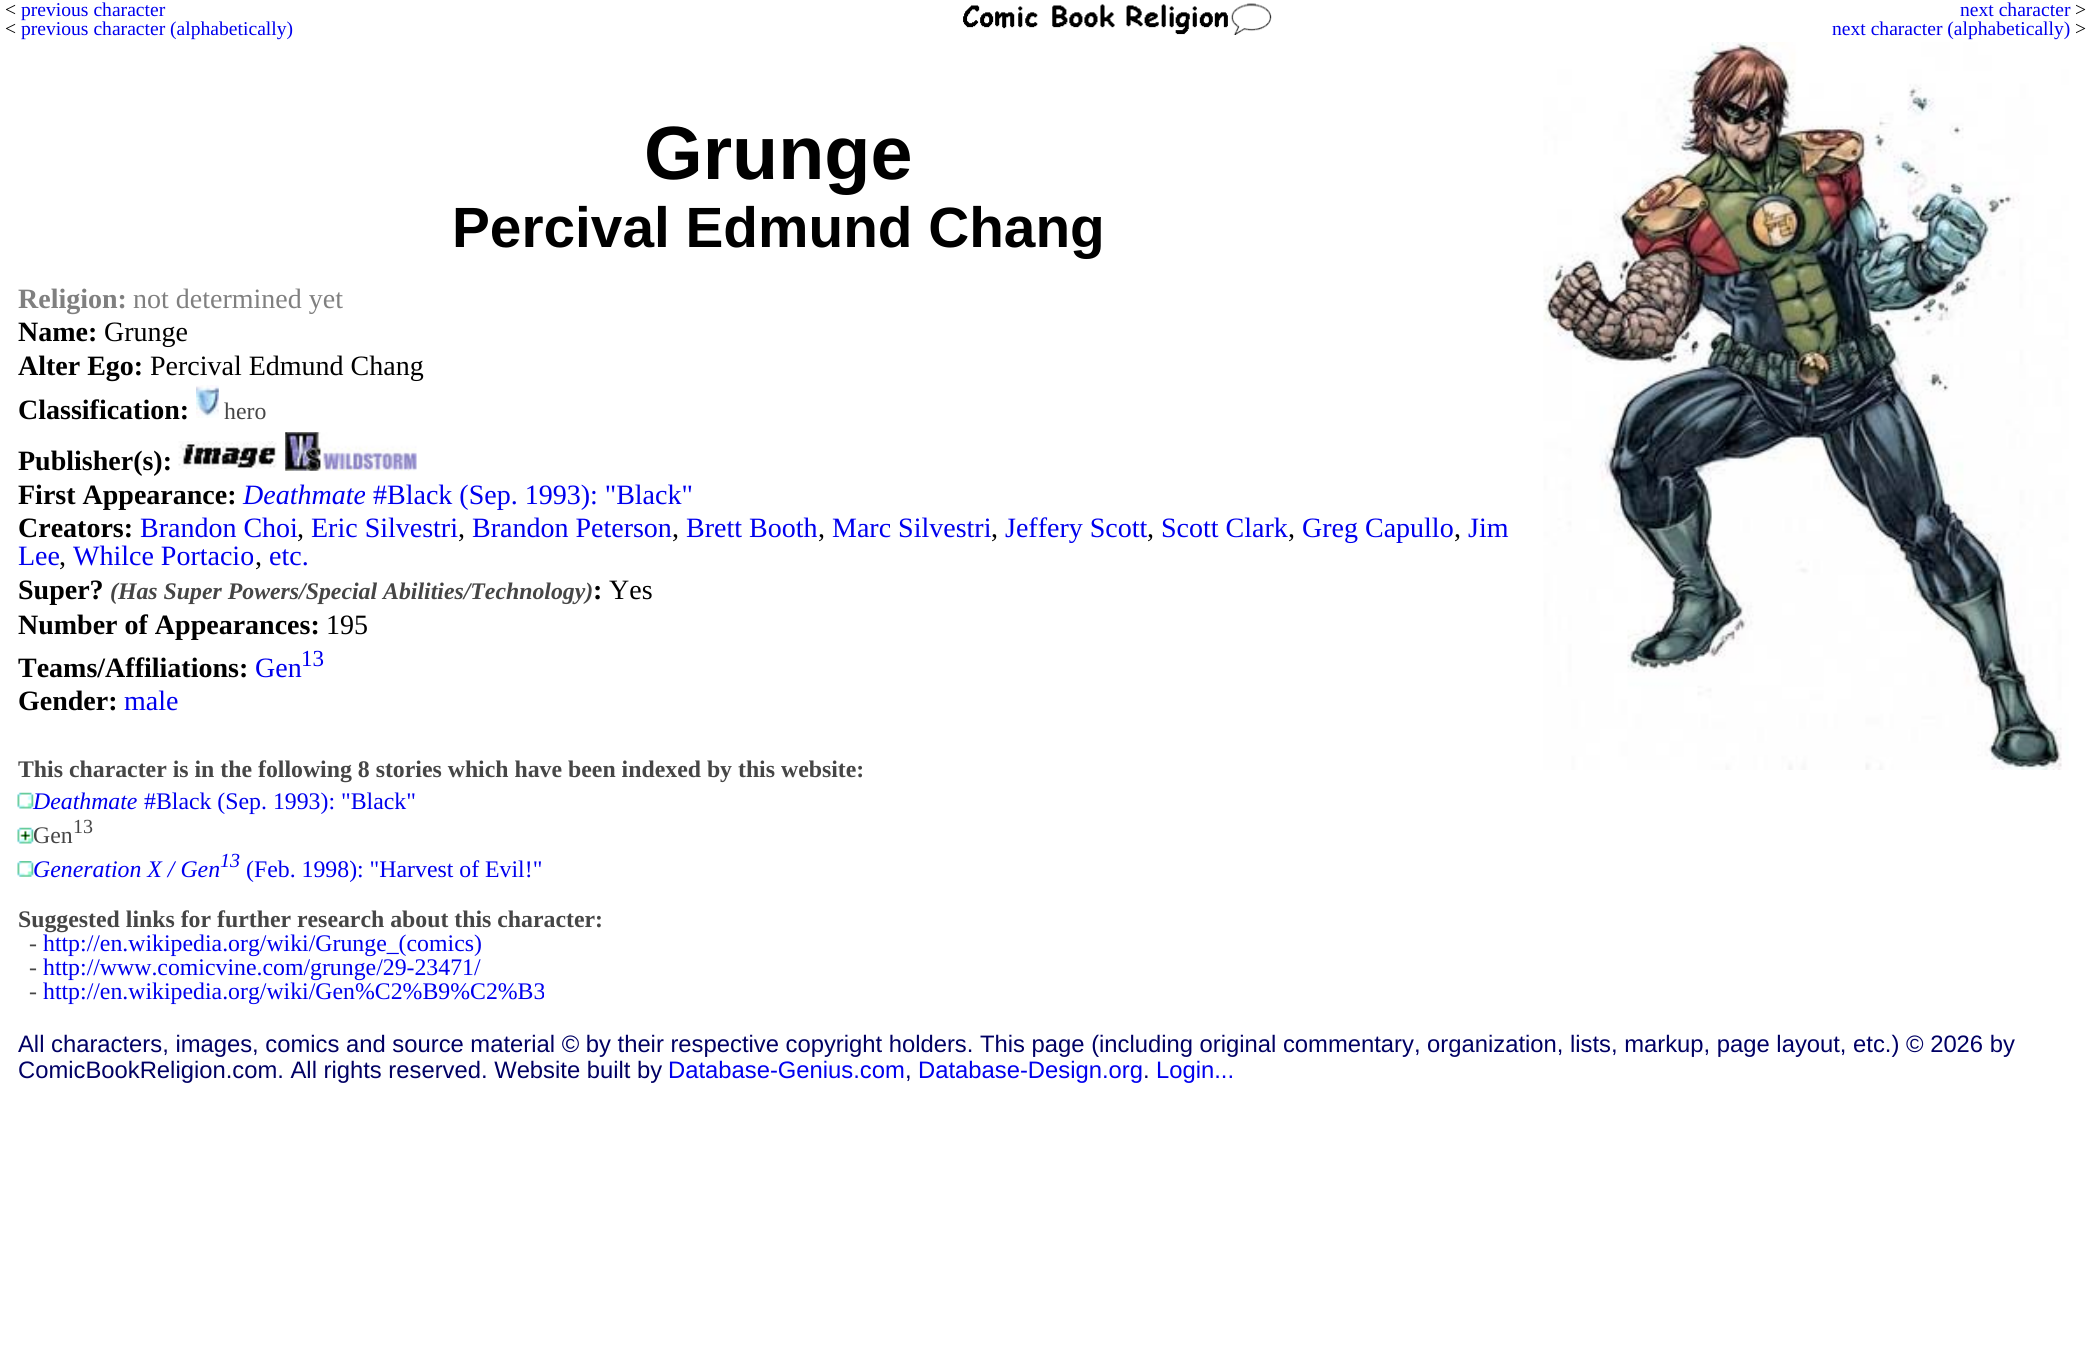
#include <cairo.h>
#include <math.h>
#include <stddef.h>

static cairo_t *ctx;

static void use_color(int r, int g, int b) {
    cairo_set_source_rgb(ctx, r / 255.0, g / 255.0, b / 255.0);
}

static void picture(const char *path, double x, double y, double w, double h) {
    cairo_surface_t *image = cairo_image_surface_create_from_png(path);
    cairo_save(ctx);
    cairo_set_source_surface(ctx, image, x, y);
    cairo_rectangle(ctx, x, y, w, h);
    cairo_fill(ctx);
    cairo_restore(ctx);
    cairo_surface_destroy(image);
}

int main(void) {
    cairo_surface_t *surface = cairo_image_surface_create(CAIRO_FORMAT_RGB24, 2091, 1369);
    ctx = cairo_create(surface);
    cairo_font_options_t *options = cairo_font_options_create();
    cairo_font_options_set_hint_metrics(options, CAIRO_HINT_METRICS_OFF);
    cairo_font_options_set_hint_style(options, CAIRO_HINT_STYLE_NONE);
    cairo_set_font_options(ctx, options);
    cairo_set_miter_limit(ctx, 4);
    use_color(255, 255, 255);
    cairo_paint(ctx);
    cairo_select_font_face(ctx, "Liberation Serif", CAIRO_FONT_SLANT_NORMAL, CAIRO_FONT_WEIGHT_NORMAL);
    cairo_set_font_size(ctx, 19.6);
    use_color(0, 0, 0);
    cairo_move_to(ctx, 5, 16);
    cairo_show_text(ctx, "<");
    use_color(0, 0, 238);
    cairo_move_to(ctx, 21, 16);
    cairo_show_text(ctx, "previous character");
    use_color(0, 0, 0);
    cairo_move_to(ctx, 5, 35);
    cairo_show_text(ctx, "<");
    use_color(0, 0, 238);
    cairo_move_to(ctx, 21, 35);
    cairo_show_text(ctx, "previous character (alphabetically)");
    picture("img1.png", 963, 3, 309, 32);
    cairo_move_to(ctx, 1960, 16);
    cairo_show_text(ctx, "next character");
    use_color(0, 0, 0);
    cairo_move_to(ctx, 2075, 16);
    cairo_show_text(ctx, ">");
    use_color(0, 0, 238);
    cairo_move_to(ctx, 1832, 35);
    cairo_show_text(ctx, "next character (alphabetically)");
    use_color(0, 0, 0);
    cairo_move_to(ctx, 2075, 35);
    cairo_show_text(ctx, ">");
    cairo_select_font_face(ctx, "Liberation Sans", CAIRO_FONT_SLANT_NORMAL, CAIRO_FONT_WEIGHT_BOLD);
    cairo_set_font_size(ctx, 75.5);
    cairo_move_to(ctx, 644, 179);
    cairo_show_text(ctx, "Grunge");
    cairo_set_font_size(ctx, 56.75);
    cairo_move_to(ctx, 452, 247);
    cairo_show_text(ctx, "Percival Edmund Chang");
    picture("img2.png", 1543, 42, 526, 728);
    cairo_select_font_face(ctx, "Liberation Serif", CAIRO_FONT_SLANT_NORMAL, CAIRO_FONT_WEIGHT_BOLD);
    cairo_set_font_size(ctx, 28);
    use_color(128, 128, 128);
    cairo_move_to(ctx, 18, 308);
    cairo_show_text(ctx, "Religion:");
    cairo_select_font_face(ctx, "Liberation Serif", CAIRO_FONT_SLANT_NORMAL, CAIRO_FONT_WEIGHT_NORMAL);
    cairo_move_to(ctx, 133, 308);
    cairo_show_text(ctx, "not determined yet");
    cairo_select_font_face(ctx, "Liberation Serif", CAIRO_FONT_SLANT_NORMAL, CAIRO_FONT_WEIGHT_BOLD);
    use_color(0, 0, 0);
    cairo_move_to(ctx, 18, 341);
    cairo_show_text(ctx, "Name:");
    cairo_select_font_face(ctx, "Liberation Serif", CAIRO_FONT_SLANT_NORMAL, CAIRO_FONT_WEIGHT_NORMAL);
    cairo_move_to(ctx, 104, 341);
    cairo_show_text(ctx, "Grunge");
    cairo_select_font_face(ctx, "Liberation Serif", CAIRO_FONT_SLANT_NORMAL, CAIRO_FONT_WEIGHT_BOLD);
    cairo_move_to(ctx, 18, 375);
    cairo_show_text(ctx, "Alter Ego:");
    cairo_select_font_face(ctx, "Liberation Serif", CAIRO_FONT_SLANT_NORMAL, CAIRO_FONT_WEIGHT_NORMAL);
    cairo_move_to(ctx, 150, 375);
    cairo_show_text(ctx, "Percival Edmund Chang");
    cairo_select_font_face(ctx, "Liberation Serif", CAIRO_FONT_SLANT_NORMAL, CAIRO_FONT_WEIGHT_BOLD);
    cairo_move_to(ctx, 18, 419);
    cairo_show_text(ctx, "Classification:");
    picture("img3.png", 196, 385, 23, 33);
    cairo_select_font_face(ctx, "Liberation Serif", CAIRO_FONT_SLANT_NORMAL, CAIRO_FONT_WEIGHT_NORMAL);
    cairo_set_font_size(ctx, 23.8);
    use_color(70, 70, 70);
    cairo_move_to(ctx, 224, 419);
    cairo_show_text(ctx, "hero");
    cairo_select_font_face(ctx, "Liberation Serif", CAIRO_FONT_SLANT_NORMAL, CAIRO_FONT_WEIGHT_BOLD);
    cairo_set_font_size(ctx, 28);
    use_color(0, 0, 0);
    cairo_move_to(ctx, 18, 470);
    cairo_show_text(ctx, "Publisher(s):");
    picture("img4.png", 178, 441, 99, 28);
    picture("img5.png", 285, 432, 132, 39);
    cairo_move_to(ctx, 18, 504);
    cairo_show_text(ctx, "First Appearance:");
    cairo_select_font_face(ctx, "Liberation Serif", CAIRO_FONT_SLANT_ITALIC, CAIRO_FONT_WEIGHT_NORMAL);
    use_color(0, 0, 238);
    cairo_move_to(ctx, 243, 504);
    cairo_show_text(ctx, "Deathmate");
    cairo_select_font_face(ctx, "Liberation Serif", CAIRO_FONT_SLANT_NORMAL, CAIRO_FONT_WEIGHT_NORMAL);
    cairo_move_to(ctx, 373, 504);
    cairo_show_text(ctx, "#Black (Sep. 1993): \"Black\"");
    cairo_select_font_face(ctx, "Liberation Serif", CAIRO_FONT_SLANT_NORMAL, CAIRO_FONT_WEIGHT_BOLD);
    use_color(0, 0, 0);
    cairo_move_to(ctx, 18, 537);
    cairo_show_text(ctx, "Creators:");
    cairo_select_font_face(ctx, "Liberation Serif", CAIRO_FONT_SLANT_NORMAL, CAIRO_FONT_WEIGHT_NORMAL);
    use_color(0, 0, 238);
    cairo_move_to(ctx, 140, 537);
    cairo_show_text(ctx, "Brandon Choi");
    use_color(0, 0, 0);
    cairo_move_to(ctx, 297, 537);
    cairo_show_text(ctx, ",");
    use_color(0, 0, 238);
    cairo_move_to(ctx, 311, 537);
    cairo_show_text(ctx, "Eric Silvestri");
    use_color(0, 0, 0);
    cairo_move_to(ctx, 458, 537);
    cairo_show_text(ctx, ",");
    use_color(0, 0, 238);
    cairo_move_to(ctx, 472, 537);
    cairo_show_text(ctx, "Brandon Peterson");
    use_color(0, 0, 0);
    cairo_move_to(ctx, 672, 537);
    cairo_show_text(ctx, ",");
    use_color(0, 0, 238);
    cairo_move_to(ctx, 686, 537);
    cairo_show_text(ctx, "Brett Booth");
    use_color(0, 0, 0);
    cairo_move_to(ctx, 818, 537);
    cairo_show_text(ctx, ",");
    use_color(0, 0, 238);
    cairo_move_to(ctx, 832, 537);
    cairo_show_text(ctx, "Marc Silvestri");
    use_color(0, 0, 0);
    cairo_move_to(ctx, 991, 537);
    cairo_show_text(ctx, ",");
    use_color(0, 0, 238);
    cairo_move_to(ctx, 1005, 537);
    cairo_show_text(ctx, "Jeffery Scott");
    use_color(0, 0, 0);
    cairo_move_to(ctx, 1147, 537);
    cairo_show_text(ctx, ",");
    use_color(0, 0, 238);
    cairo_move_to(ctx, 1161, 537);
    cairo_show_text(ctx, "Scott Clark");
    use_color(0, 0, 0);
    cairo_move_to(ctx, 1288, 537);
    cairo_show_text(ctx, ",");
    use_color(0, 0, 238);
    cairo_move_to(ctx, 1302, 537);
    cairo_show_text(ctx, "Greg Capullo");
    use_color(0, 0, 0);
    cairo_move_to(ctx, 1454, 537);
    cairo_show_text(ctx, ",");
    use_color(0, 0, 238);
    cairo_move_to(ctx, 1468, 537);
    cairo_show_text(ctx, "Jim");
    cairo_move_to(ctx, 18, 565);
    cairo_show_text(ctx, "Lee");
    use_color(0, 0, 0);
    cairo_move_to(ctx, 59, 565);
    cairo_show_text(ctx, ",");
    use_color(0, 0, 238);
    cairo_move_to(ctx, 73, 565);
    cairo_show_text(ctx, "Whilce Portacio");
    use_color(0, 0, 0);
    cairo_move_to(ctx, 255, 565);
    cairo_show_text(ctx, ",");
    use_color(0, 0, 238);
    cairo_move_to(ctx, 269, 565);
    cairo_show_text(ctx, "etc.");
    cairo_select_font_face(ctx, "Liberation Serif", CAIRO_FONT_SLANT_NORMAL, CAIRO_FONT_WEIGHT_BOLD);
    use_color(0, 0, 0);
    cairo_move_to(ctx, 18, 599);
    cairo_show_text(ctx, "Super?");
    cairo_select_font_face(ctx, "Liberation Serif", CAIRO_FONT_SLANT_ITALIC, CAIRO_FONT_WEIGHT_BOLD);
    cairo_set_font_size(ctx, 23.8);
    use_color(70, 70, 70);
    cairo_move_to(ctx, 110, 599);
    cairo_show_text(ctx, "(Has Super Powers/Special Abilities/Technology)");
    cairo_select_font_face(ctx, "Liberation Serif", CAIRO_FONT_SLANT_NORMAL, CAIRO_FONT_WEIGHT_BOLD);
    cairo_set_font_size(ctx, 28);
    use_color(0, 0, 0);
    cairo_move_to(ctx, 593, 599);
    cairo_show_text(ctx, ":");
    cairo_select_font_face(ctx, "Liberation Serif", CAIRO_FONT_SLANT_NORMAL, CAIRO_FONT_WEIGHT_NORMAL);
    cairo_move_to(ctx, 609, 599);
    cairo_show_text(ctx, "Yes");
    cairo_select_font_face(ctx, "Liberation Serif", CAIRO_FONT_SLANT_NORMAL, CAIRO_FONT_WEIGHT_BOLD);
    cairo_move_to(ctx, 18, 634);
    cairo_show_text(ctx, "Number of Appearances:");
    cairo_select_font_face(ctx, "Liberation Serif", CAIRO_FONT_SLANT_NORMAL, CAIRO_FONT_WEIGHT_NORMAL);
    cairo_move_to(ctx, 326, 634);
    cairo_show_text(ctx, "195");
    cairo_select_font_face(ctx, "Liberation Serif", CAIRO_FONT_SLANT_NORMAL, CAIRO_FONT_WEIGHT_BOLD);
    cairo_move_to(ctx, 18, 677);
    cairo_show_text(ctx, "Teams/Affiliations:");
    cairo_select_font_face(ctx, "Liberation Serif", CAIRO_FONT_SLANT_NORMAL, CAIRO_FONT_WEIGHT_NORMAL);
    use_color(0, 0, 238);
    cairo_move_to(ctx, 255, 677);
    cairo_show_text(ctx, "Gen");
    cairo_set_font_size(ctx, 23);
    cairo_move_to(ctx, 301, 666);
    cairo_show_text(ctx, "13");
    cairo_select_font_face(ctx, "Liberation Serif", CAIRO_FONT_SLANT_NORMAL, CAIRO_FONT_WEIGHT_BOLD);
    cairo_set_font_size(ctx, 28);
    use_color(0, 0, 0);
    cairo_move_to(ctx, 18, 710);
    cairo_show_text(ctx, "Gender:");
    cairo_select_font_face(ctx, "Liberation Serif", CAIRO_FONT_SLANT_NORMAL, CAIRO_FONT_WEIGHT_NORMAL);
    use_color(0, 0, 238);
    cairo_move_to(ctx, 124, 710);
    cairo_show_text(ctx, "male");
    cairo_select_font_face(ctx, "Liberation Serif", CAIRO_FONT_SLANT_NORMAL, CAIRO_FONT_WEIGHT_BOLD);
    cairo_set_font_size(ctx, 23.8);
    use_color(70, 70, 70);
    cairo_move_to(ctx, 18, 777);
    cairo_show_text(ctx, "This character is in the following 8 stories which have been indexed by this website:");
    picture("img6.png", 17, 792, 17, 17);
    cairo_select_font_face(ctx, "Liberation Serif", CAIRO_FONT_SLANT_ITALIC, CAIRO_FONT_WEIGHT_NORMAL);
    use_color(0, 0, 238);
    cairo_move_to(ctx, 33, 809);
    cairo_show_text(ctx, "Deathmate");
    cairo_select_font_face(ctx, "Liberation Serif", CAIRO_FONT_SLANT_NORMAL, CAIRO_FONT_WEIGHT_NORMAL);
    cairo_move_to(ctx, 144, 809);
    cairo_show_text(ctx, "#Black (Sep. 1993): \"Black\"");
    picture("img7.png", 17, 827, 17, 17);
    use_color(70, 70, 70);
    cairo_move_to(ctx, 33, 843);
    cairo_show_text(ctx, "Gen");
    cairo_set_font_size(ctx, 20);
    cairo_move_to(ctx, 73, 833);
    cairo_show_text(ctx, "13");
    picture("img8.png", 17, 861, 17, 16);
    cairo_select_font_face(ctx, "Liberation Serif", CAIRO_FONT_SLANT_ITALIC, CAIRO_FONT_WEIGHT_NORMAL);
    cairo_set_font_size(ctx, 23.8);
    use_color(0, 0, 238);
    cairo_move_to(ctx, 33, 877);
    cairo_show_text(ctx, "Generation X / Gen");
    cairo_set_font_size(ctx, 20);
    cairo_move_to(ctx, 220, 867);
    cairo_show_text(ctx, "13");
    cairo_select_font_face(ctx, "Liberation Serif", CAIRO_FONT_SLANT_NORMAL, CAIRO_FONT_WEIGHT_NORMAL);
    cairo_set_font_size(ctx, 23.8);
    cairo_move_to(ctx, 246, 877);
    cairo_show_text(ctx, "(Feb. 1998): \"Harvest of Evil!\"");
    cairo_select_font_face(ctx, "Liberation Serif", CAIRO_FONT_SLANT_NORMAL, CAIRO_FONT_WEIGHT_BOLD);
    use_color(70, 70, 70);
    cairo_move_to(ctx, 18, 927);
    cairo_show_text(ctx, "Suggested links for further research about this character:");
    cairo_select_font_face(ctx, "Liberation Serif", CAIRO_FONT_SLANT_NORMAL, CAIRO_FONT_WEIGHT_NORMAL);
    cairo_move_to(ctx, 29, 951);
    cairo_show_text(ctx, "-");
    use_color(0, 0, 238);
    cairo_move_to(ctx, 43, 951);
    cairo_show_text(ctx, "http://en.wikipedia.org/wiki/Grunge_(comics)");
    use_color(70, 70, 70);
    cairo_move_to(ctx, 29, 975);
    cairo_show_text(ctx, "-");
    use_color(0, 0, 238);
    cairo_move_to(ctx, 43, 975);
    cairo_show_text(ctx, "http://www.comicvine.com/grunge/29-23471/");
    use_color(70, 70, 70);
    cairo_move_to(ctx, 29, 999);
    cairo_show_text(ctx, "-");
    use_color(0, 0, 238);
    cairo_move_to(ctx, 43, 999);
    cairo_show_text(ctx, "http://en.wikipedia.org/wiki/Gen%C2%B9%C2%B3");
    cairo_select_font_face(ctx, "Liberation Sans", CAIRO_FONT_SLANT_NORMAL, CAIRO_FONT_WEIGHT_NORMAL);
    use_color(0, 0, 100);
    cairo_move_to(ctx, 18, 1052);
    cairo_show_text(ctx, "All characters, images, comics and source material © by their respective copyright holders. This page (including original commentary, organization, lists, markup, page layout, etc.) © 2026 by");
    cairo_move_to(ctx, 18, 1078);
    cairo_show_text(ctx, "ComicBookReligion.com. All rights reserved. Website built by");
    use_color(0, 0, 238);
    cairo_move_to(ctx, 668, 1078);
    cairo_show_text(ctx, "Database-Genius.com");
    use_color(0, 0, 100);
    cairo_move_to(ctx, 905, 1078);
    cairo_show_text(ctx, ",");
    use_color(0, 0, 238);
    cairo_move_to(ctx, 918, 1078);
    cairo_show_text(ctx, "Database-Design.org");
    use_color(0, 0, 100);
    cairo_move_to(ctx, 1143, 1078);
    cairo_show_text(ctx, ".");
    use_color(0, 0, 238);
    cairo_move_to(ctx, 1156, 1078);
    cairo_show_text(ctx, "Login...");
    cairo_surface_write_to_png(surface, "result.png");
    cairo_font_options_destroy(options);
    cairo_destroy(ctx);
    cairo_surface_destroy(surface);
    return 0;
}
